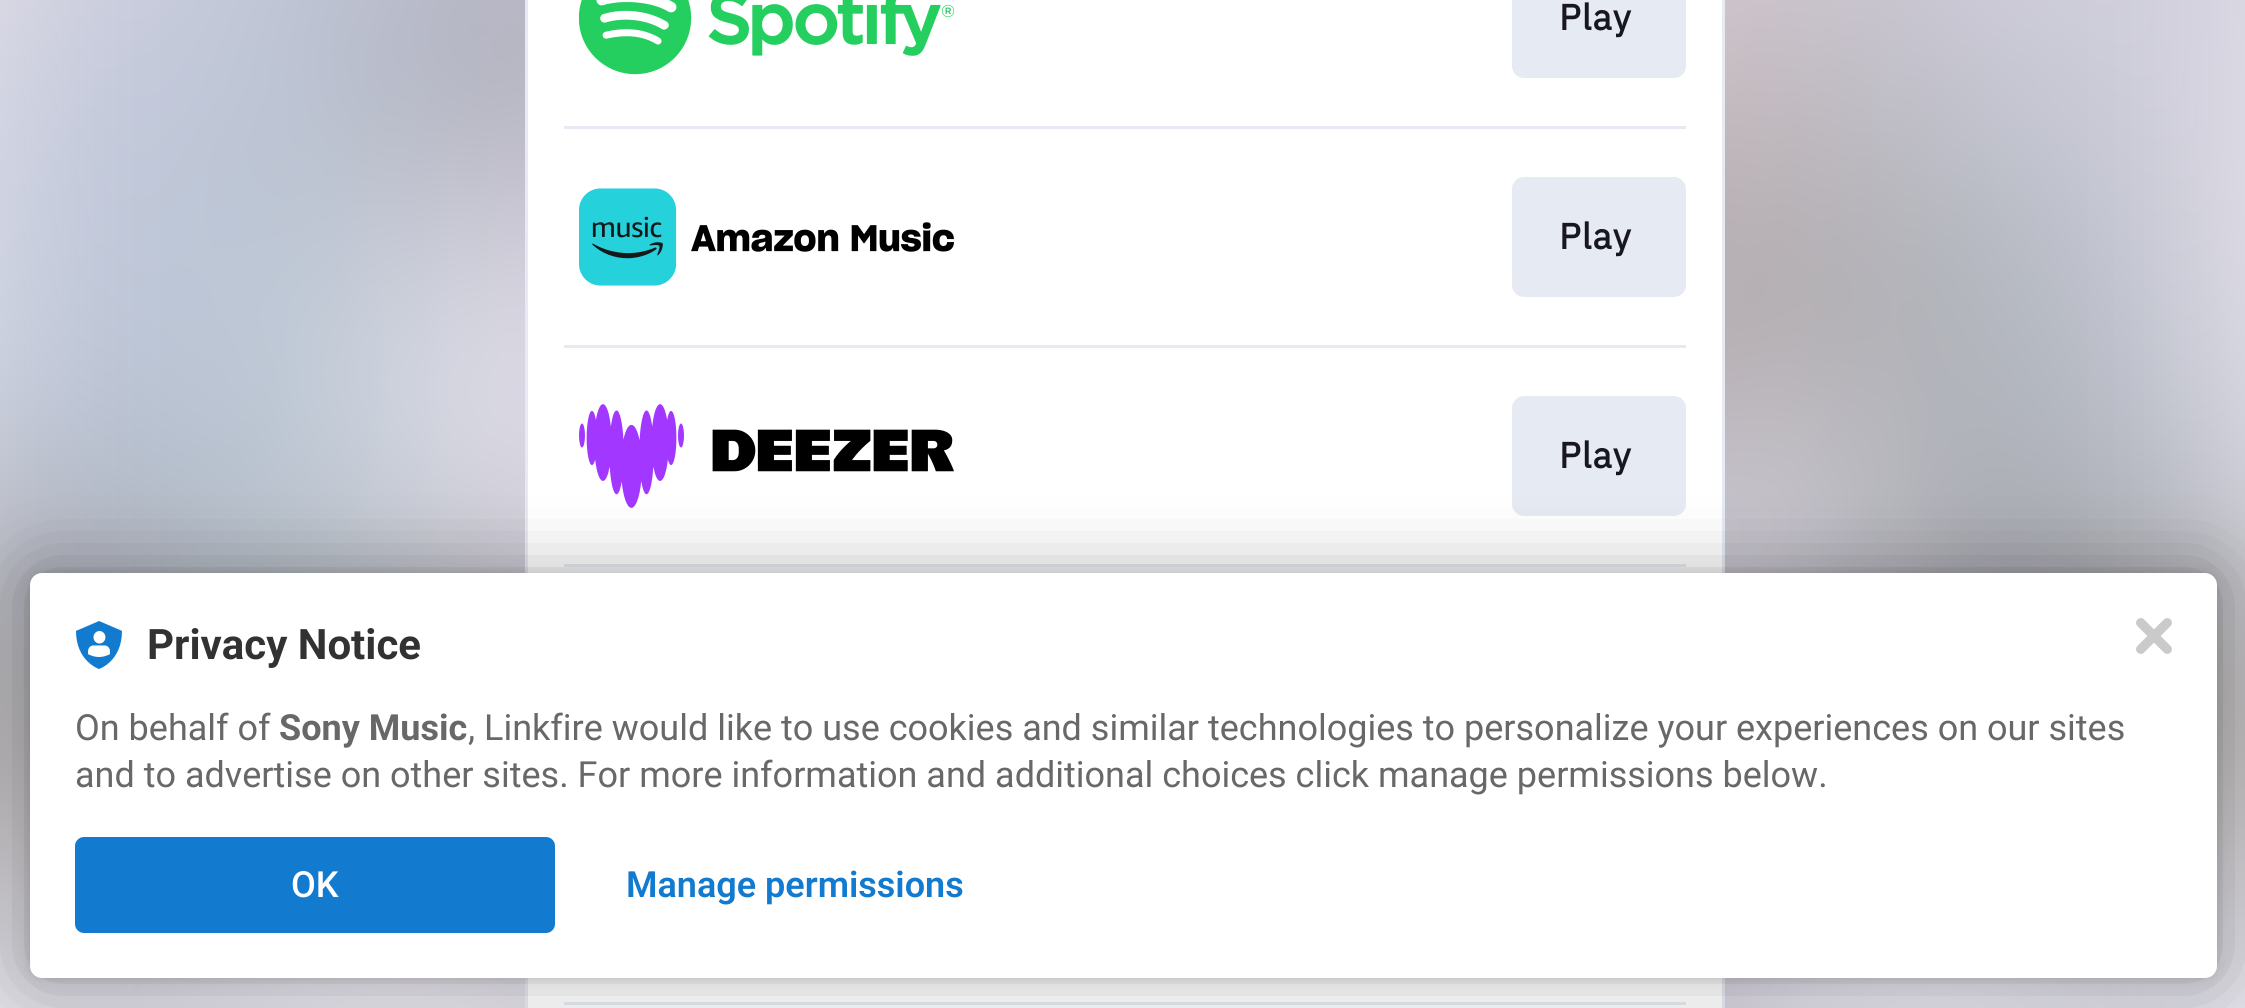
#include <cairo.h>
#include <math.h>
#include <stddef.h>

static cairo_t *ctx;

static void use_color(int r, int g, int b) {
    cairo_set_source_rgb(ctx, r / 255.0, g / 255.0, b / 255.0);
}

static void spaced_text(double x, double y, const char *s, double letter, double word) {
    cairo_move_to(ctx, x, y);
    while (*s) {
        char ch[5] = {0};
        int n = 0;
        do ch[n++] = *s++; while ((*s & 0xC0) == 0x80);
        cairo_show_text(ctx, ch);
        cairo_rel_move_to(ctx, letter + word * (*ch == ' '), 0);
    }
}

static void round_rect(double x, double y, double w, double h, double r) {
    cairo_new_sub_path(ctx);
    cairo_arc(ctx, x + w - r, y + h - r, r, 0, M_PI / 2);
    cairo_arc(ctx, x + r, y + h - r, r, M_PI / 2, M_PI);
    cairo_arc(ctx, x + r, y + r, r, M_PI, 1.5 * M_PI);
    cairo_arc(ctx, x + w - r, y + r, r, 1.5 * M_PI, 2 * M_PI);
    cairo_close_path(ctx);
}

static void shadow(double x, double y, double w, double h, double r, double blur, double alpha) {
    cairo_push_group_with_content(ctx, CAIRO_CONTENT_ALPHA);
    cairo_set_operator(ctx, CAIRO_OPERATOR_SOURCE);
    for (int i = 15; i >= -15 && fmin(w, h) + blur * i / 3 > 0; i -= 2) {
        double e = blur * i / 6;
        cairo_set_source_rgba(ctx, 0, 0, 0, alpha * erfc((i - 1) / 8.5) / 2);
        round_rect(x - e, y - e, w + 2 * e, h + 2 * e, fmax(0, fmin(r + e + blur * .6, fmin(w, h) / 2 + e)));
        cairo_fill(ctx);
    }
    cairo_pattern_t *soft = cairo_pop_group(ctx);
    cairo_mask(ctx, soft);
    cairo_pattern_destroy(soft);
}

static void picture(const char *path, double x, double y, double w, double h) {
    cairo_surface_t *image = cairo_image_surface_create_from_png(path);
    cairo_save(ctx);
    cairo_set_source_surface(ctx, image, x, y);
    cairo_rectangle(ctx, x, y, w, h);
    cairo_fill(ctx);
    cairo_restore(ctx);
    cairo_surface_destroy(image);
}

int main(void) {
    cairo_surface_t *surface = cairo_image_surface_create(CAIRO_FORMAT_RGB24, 2245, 1008);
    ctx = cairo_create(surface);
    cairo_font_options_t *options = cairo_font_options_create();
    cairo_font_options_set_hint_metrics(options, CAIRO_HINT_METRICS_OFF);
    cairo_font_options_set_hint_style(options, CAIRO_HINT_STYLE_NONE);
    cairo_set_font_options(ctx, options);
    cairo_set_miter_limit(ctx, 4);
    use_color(255, 255, 255);
    cairo_paint(ctx);
    picture("img1.png", 0, 0, 2245, 1008);
    use_color(255, 255, 255);
    cairo_rectangle(ctx, 526.5, -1.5, 1197, 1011);
    cairo_fill_preserve(ctx);
    use_color(230, 234, 242);
    cairo_set_line_width(ctx, 3);
    cairo_stroke(ctx);
    picture("img2.png", 579, 0, 375, 75);
    round_rect(1512, -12, 174, 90, 12);
    cairo_fill(ctx);
    cairo_select_font_face(ctx, "IBM Plex Sans", CAIRO_FONT_SLANT_NORMAL, CAIRO_FONT_WEIGHT_BOLD);
    cairo_set_font_size(ctx, 36);
    use_color(24, 23, 33);
    spaced_text(1559, 30, "Play", 1, 0);
    use_color(230, 234, 242);
    cairo_rectangle(ctx, 564, 126, 1122, 3);
    cairo_fill(ctx);
    picture("img3.png", 579, 188, 375, 98);
    round_rect(1512, 177, 174, 120, 12);
    cairo_fill(ctx);
    use_color(24, 23, 33);
    spaced_text(1559, 249, "Play", 1, 0);
    use_color(230, 234, 242);
    cairo_rectangle(ctx, 564, 345, 1122, 3);
    cairo_fill(ctx);
    picture("img4.png", 579, 404, 375, 104);
    round_rect(1512, 396, 174, 120, 12);
    cairo_fill(ctx);
    use_color(24, 23, 33);
    spaced_text(1559, 468, "Play", 1, 0);
    use_color(230, 234, 242);
    cairo_rectangle(ctx, 564, 564, 1122, 3);
    cairo_fill(ctx);
    cairo_rectangle(ctx, 564, 1002, 1122, 3);
    cairo_fill(ctx);
    use_color(0, 0, 0);
    shadow(30, 573, 2187, 405, 12, 6, 0.12);
    shadow(30, 573, 2187, 405, 12, 36, 0.3);
    use_color(255, 255, 255);
    round_rect(30, 573, 2187, 405, 12);
    cairo_fill(ctx);
    picture("img5.png", 76, 621, 46, 48);
    cairo_select_font_face(ctx, "Roboto", CAIRO_FONT_SLANT_NORMAL, CAIRO_FONT_WEIGHT_BOLD);
    cairo_set_font_size(ctx, 42);
    use_color(50, 50, 50);
    cairo_move_to(ctx, 147, 659);
    cairo_show_text(ctx, "Privacy Notice");
    cairo_select_font_face(ctx, "Roboto", CAIRO_FONT_SLANT_NORMAL, CAIRO_FONT_WEIGHT_NORMAL);
    cairo_set_font_size(ctx, 36);
    use_color(104, 104, 104);
    cairo_move_to(ctx, 75, 740);
    cairo_show_text(ctx, "On behalf of");
    cairo_select_font_face(ctx, "Roboto", CAIRO_FONT_SLANT_NORMAL, CAIRO_FONT_WEIGHT_BOLD);
    cairo_move_to(ctx, 279, 740);
    cairo_show_text(ctx, "Sony Music");
    cairo_select_font_face(ctx, "Roboto", CAIRO_FONT_SLANT_NORMAL, CAIRO_FONT_WEIGHT_NORMAL);
    cairo_move_to(ctx, 468, 740);
    cairo_show_text(ctx, ", Linkfire would like to use cookies and similar technologies to personalize your experiences on our sites");
    cairo_move_to(ctx, 75, 787);
    cairo_show_text(ctx, "and to advertise on other sites. For more information and additional choices click manage permissions below.");
    use_color(19, 123, 207);
    round_rect(75, 837, 480, 96, 9);
    cairo_fill(ctx);
    cairo_select_font_face(ctx, "Roboto Medium", CAIRO_FONT_SLANT_NORMAL, CAIRO_FONT_WEIGHT_NORMAL);
    use_color(255, 255, 255);
    cairo_move_to(ctx, 291, 897);
    cairo_show_text(ctx, "OK");
    cairo_select_font_face(ctx, "Roboto SemiBold", CAIRO_FONT_SLANT_NORMAL, CAIRO_FONT_WEIGHT_NORMAL);
    use_color(19, 123, 207);
    cairo_move_to(ctx, 626, 897);
    cairo_show_text(ctx, "Manage permissions");
    picture("img6.png", 2136, 618, 36, 36);
    cairo_surface_write_to_png(surface, "result.png");
    cairo_font_options_destroy(options);
    cairo_destroy(ctx);
    cairo_surface_destroy(surface);
    return 0;
}
